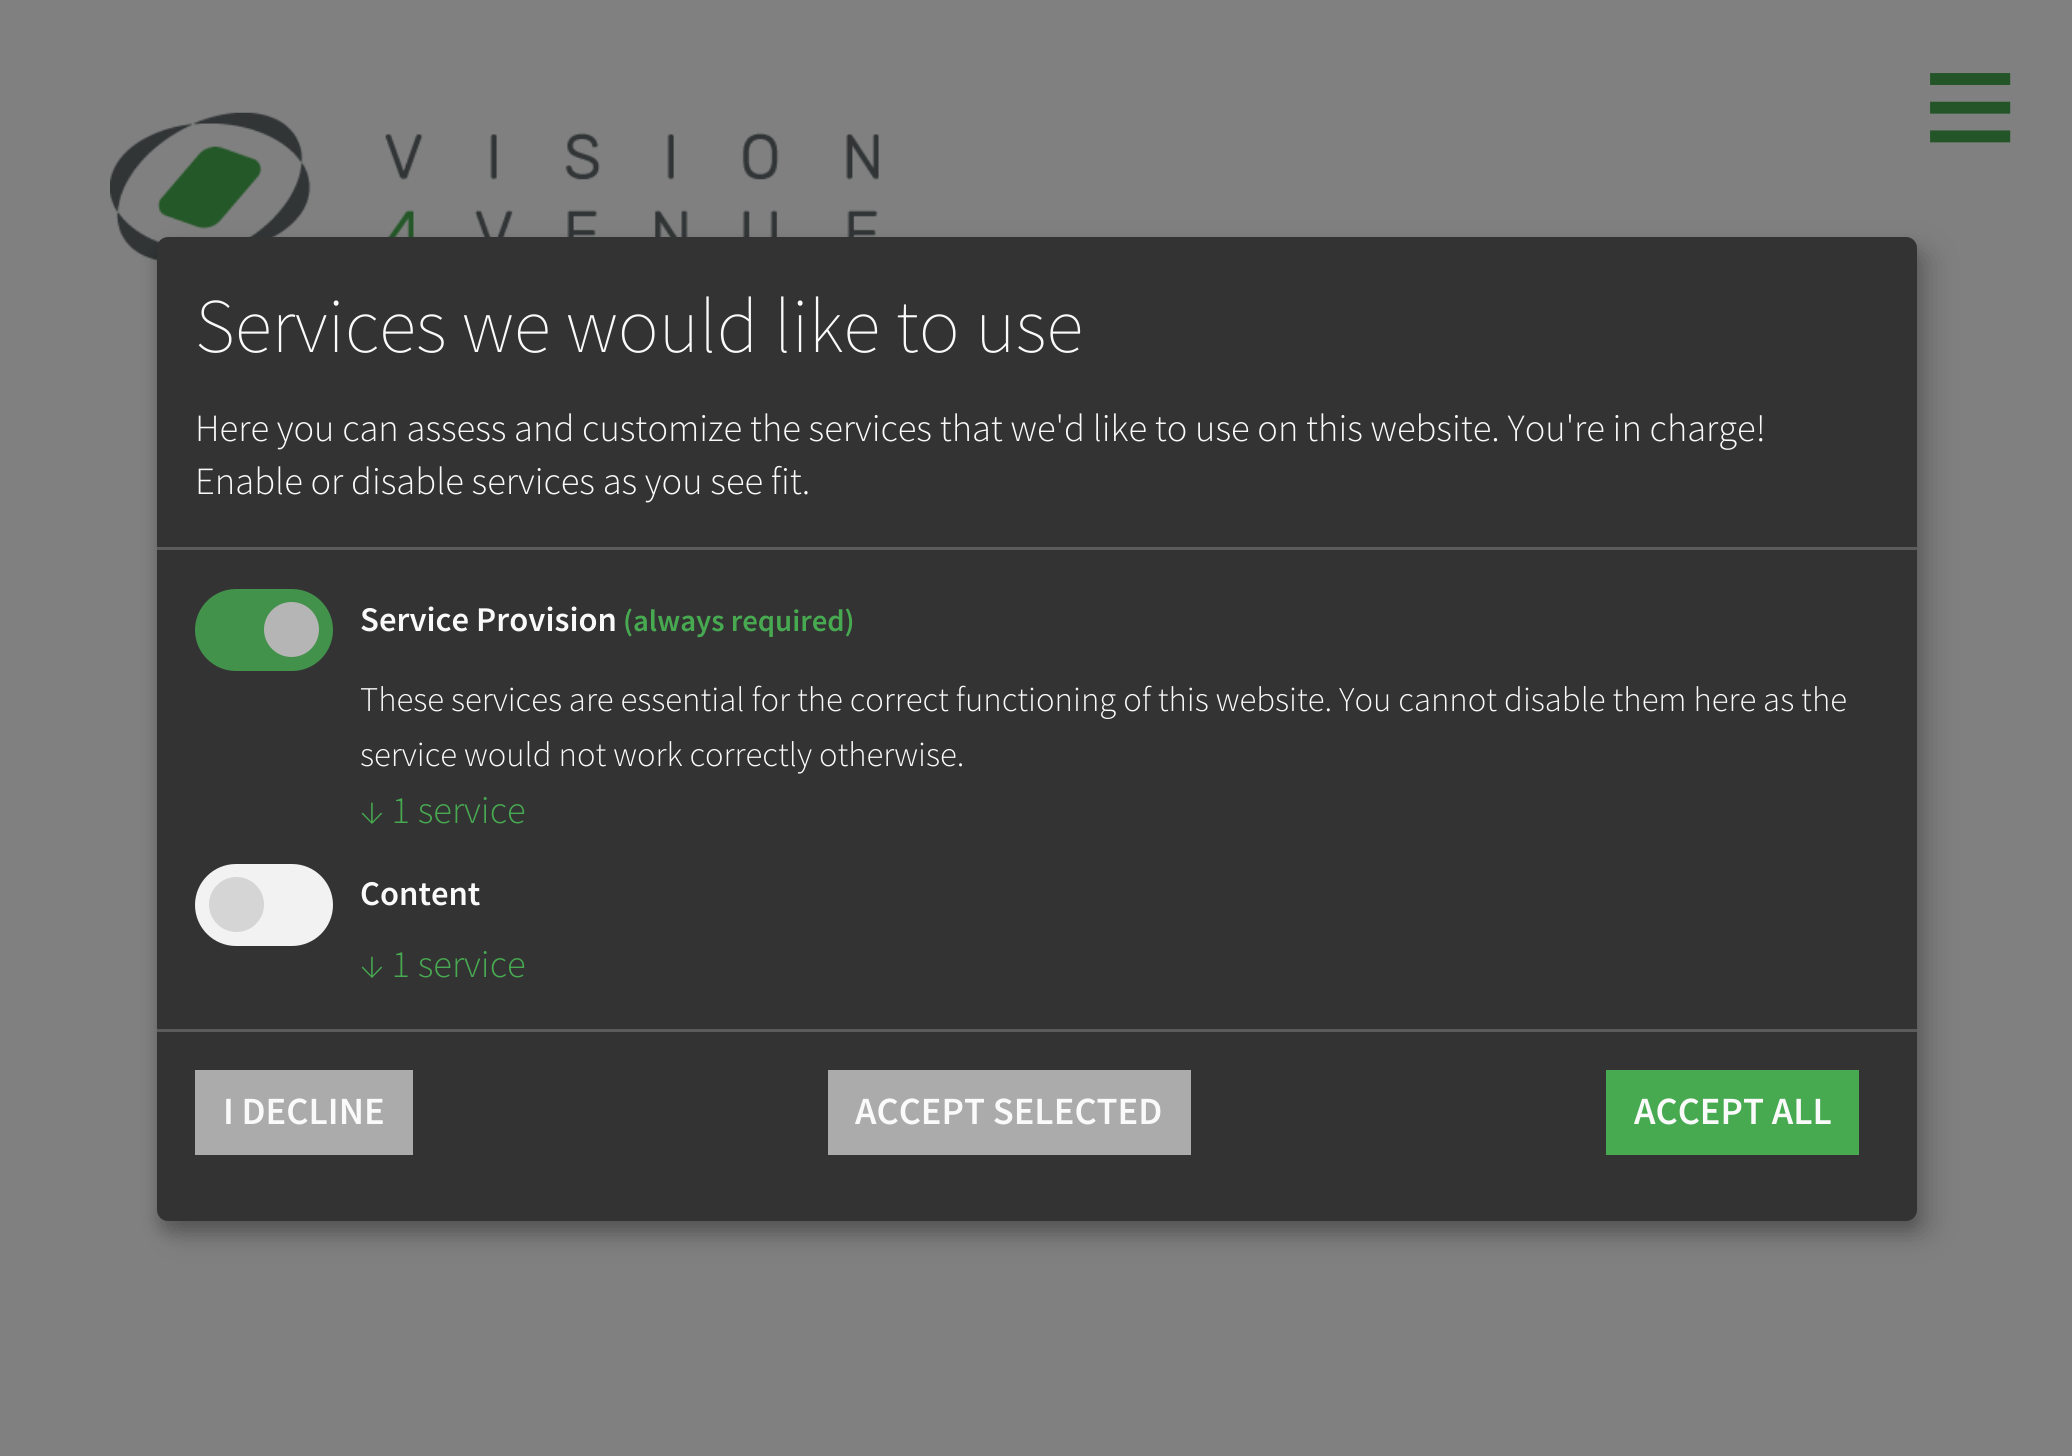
#include <cairo.h>
#include <math.h>
#include <stddef.h>

static cairo_t *ctx;

static void use_color(int r, int g, int b) {
    cairo_set_source_rgb(ctx, r / 255.0, g / 255.0, b / 255.0);
}

static void round_rect(double x, double y, double w, double h, double r) {
    cairo_new_sub_path(ctx);
    cairo_arc(ctx, x + w - r, y + h - r, r, 0, M_PI / 2);
    cairo_arc(ctx, x + r, y + h - r, r, M_PI / 2, M_PI);
    cairo_arc(ctx, x + r, y + r, r, M_PI, 1.5 * M_PI);
    cairo_arc(ctx, x + w - r, y + r, r, 1.5 * M_PI, 2 * M_PI);
    cairo_close_path(ctx);
}

static void shadow(double x, double y, double w, double h, double r, double blur, double alpha) {
    cairo_push_group_with_content(ctx, CAIRO_CONTENT_ALPHA);
    cairo_set_operator(ctx, CAIRO_OPERATOR_SOURCE);
    for (int i = 15; i >= -15 && fmin(w, h) + blur * i / 3 > 0; i -= 2) {
        double e = blur * i / 6;
        cairo_set_source_rgba(ctx, 0, 0, 0, alpha * erfc((i - 1) / 8.5) / 2);
        round_rect(x - e, y - e, w + 2 * e, h + 2 * e, fmax(0, fmin(r + e + blur * .6, fmin(w, h) / 2 + e)));
        cairo_fill(ctx);
    }
    cairo_pattern_t *soft = cairo_pop_group(ctx);
    cairo_mask(ctx, soft);
    cairo_pattern_destroy(soft);
}

static void picture(const char *path, double x, double y, double w, double h) {
    cairo_surface_t *image = cairo_image_surface_create_from_png(path);
    cairo_save(ctx);
    cairo_set_source_surface(ctx, image, x, y);
    cairo_rectangle(ctx, x, y, w, h);
    cairo_fill(ctx);
    cairo_restore(ctx);
    cairo_surface_destroy(image);
}

int main(void) {
    cairo_surface_t *surface = cairo_image_surface_create(CAIRO_FORMAT_RGB24, 2072, 1456);
    ctx = cairo_create(surface);
    cairo_font_options_t *options = cairo_font_options_create();
    cairo_font_options_set_hint_metrics(options, CAIRO_HINT_METRICS_OFF);
    cairo_font_options_set_hint_style(options, CAIRO_HINT_STYLE_NONE);
    cairo_set_font_options(ctx, options);
    cairo_set_miter_limit(ctx, 4);
    use_color(128, 128, 128);
    cairo_paint(ctx);
    picture("img1.png", 110, 112, 769, 150);
    cairo_select_font_face(ctx, "Liberation Sans", CAIRO_FONT_SLANT_NORMAL, CAIRO_FONT_WEIGHT_NORMAL);
    cairo_set_font_size(ctx, 165);
    use_color(36, 85, 41);
    cairo_move_to(ctx, 1922, 162);
    cairo_show_text(ctx, "≡");
    use_color(0, 0, 0);
    shadow(171, 250, 1760, 985, 11, 14, 0.19);
    shadow(157, 248, 1760, 984, 11, 8, 0.2);
    use_color(51, 51, 51);
    round_rect(157, 237, 1760, 984, 11);
    cairo_fill(ctx);
    use_color(92, 92, 92);
    cairo_rectangle(ctx, 157, 547, 1760, 3);
    cairo_fill(ctx);
    cairo_select_font_face(ctx, "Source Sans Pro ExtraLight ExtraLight", CAIRO_FONT_SLANT_NORMAL, CAIRO_FONT_WEIGHT_NORMAL);
    cairo_set_font_size(ctx, 77);
    use_color(250, 250, 250);
    cairo_move_to(ctx, 195, 352);
    cairo_show_text(ctx, "Services we would like to use");
    cairo_select_font_face(ctx, "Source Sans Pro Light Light", CAIRO_FONT_SLANT_NORMAL, CAIRO_FONT_WEIGHT_NORMAL);
    cairo_set_font_size(ctx, 38.5);
    cairo_move_to(ctx, 195, 441);
    cairo_show_text(ctx, "Here you can assess and customize the services that we'd like to use on this website. You're in charge!");
    cairo_move_to(ctx, 195, 494);
    cairo_show_text(ctx, "Enable or disable services as you see fit.");
    use_color(67, 146, 75);
    round_rect(195, 589, 138, 82, 41);
    cairo_fill(ctx);
    use_color(181, 181, 181);
    cairo_arc(ctx, 291.5, 629.5, 27.5, 0, 2 * M_PI);
    cairo_fill(ctx);
    cairo_select_font_face(ctx, "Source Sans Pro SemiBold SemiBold", CAIRO_FONT_SLANT_NORMAL, CAIRO_FONT_WEIGHT_NORMAL);
    cairo_set_font_size(ctx, 34.65);
    use_color(250, 250, 250);
    cairo_move_to(ctx, 360, 631);
    cairo_show_text(ctx, "Service Provision");
    cairo_set_font_size(ctx, 30.75);
    use_color(71, 170, 81);
    cairo_move_to(ctx, 623, 631);
    cairo_show_text(ctx, "(always required)");
    cairo_select_font_face(ctx, "Source Sans Pro Light Light", CAIRO_FONT_SLANT_NORMAL, CAIRO_FONT_WEIGHT_NORMAL);
    cairo_set_font_size(ctx, 34.65);
    use_color(250, 250, 250);
    cairo_move_to(ctx, 360, 711);
    cairo_show_text(ctx, "These services are essential for the correct functioning of this website. You cannot disable them here as the");
    cairo_move_to(ctx, 360, 766);
    cairo_show_text(ctx, "service would not work correctly otherwise.");
    cairo_set_font_size(ctx, 38.5);
    use_color(71, 170, 81);
    cairo_move_to(ctx, 360, 823);
    cairo_show_text(ctx, "↓ 1 service");
    use_color(242, 242, 242);
    round_rect(195, 864, 138, 82, 41);
    cairo_fill(ctx);
    use_color(213, 213, 213);
    cairo_arc(ctx, 236.5, 904.5, 27.5, 0, 2 * M_PI);
    cairo_fill(ctx);
    cairo_select_font_face(ctx, "Source Sans Pro SemiBold SemiBold", CAIRO_FONT_SLANT_NORMAL, CAIRO_FONT_WEIGHT_NORMAL);
    cairo_set_font_size(ctx, 34.65);
    use_color(250, 250, 250);
    cairo_move_to(ctx, 360, 905);
    cairo_show_text(ctx, "Content");
    cairo_select_font_face(ctx, "Source Sans Pro Light Light", CAIRO_FONT_SLANT_NORMAL, CAIRO_FONT_WEIGHT_NORMAL);
    cairo_set_font_size(ctx, 38.5);
    use_color(71, 170, 81);
    cairo_move_to(ctx, 360, 977);
    cairo_show_text(ctx, "↓ 1 service");
    use_color(92, 92, 92);
    cairo_rectangle(ctx, 157, 1029, 1760, 3);
    cairo_fill(ctx);
    use_color(171, 171, 171);
    cairo_rectangle(ctx, 195, 1070, 218, 85);
    cairo_fill(ctx);
    cairo_select_font_face(ctx, "Source Sans Pro SemiBold SemiBold", CAIRO_FONT_SLANT_NORMAL, CAIRO_FONT_WEIGHT_NORMAL);
    use_color(250, 250, 250);
    cairo_move_to(ctx, 223, 1124);
    cairo_show_text(ctx, "I DECLINE");
    use_color(171, 171, 171);
    cairo_rectangle(ctx, 828, 1070, 363, 85);
    cairo_fill(ctx);
    use_color(250, 250, 250);
    cairo_move_to(ctx, 855, 1124);
    cairo_show_text(ctx, "ACCEPT SELECTED");
    use_color(71, 170, 81);
    cairo_rectangle(ctx, 1606, 1070, 253, 85);
    cairo_fill(ctx);
    use_color(250, 250, 250);
    cairo_move_to(ctx, 1634, 1124);
    cairo_show_text(ctx, "ACCEPT ALL");
    cairo_surface_write_to_png(surface, "result.png");
    cairo_font_options_destroy(options);
    cairo_destroy(ctx);
    cairo_surface_destroy(surface);
    return 0;
}
